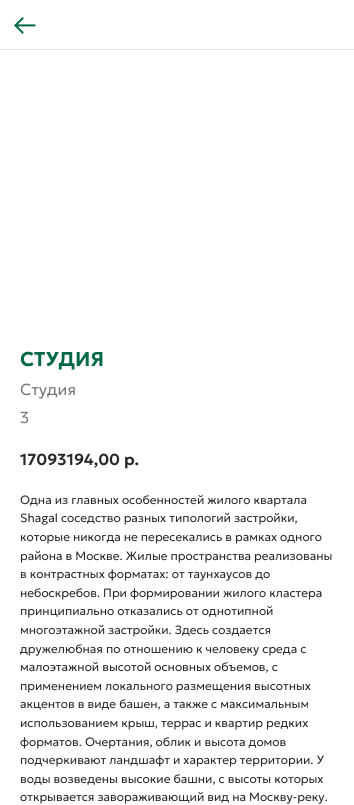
#include <cairo.h>
#include <math.h>
#include <stddef.h>

static cairo_t *ctx;

static void use_color(int r, int g, int b) {
    cairo_set_source_rgb(ctx, r / 255.0, g / 255.0, b / 255.0);
}

static void picture(const char *path, double x, double y, double w, double h) {
    cairo_surface_t *image = cairo_image_surface_create_from_png(path);
    cairo_save(ctx);
    cairo_set_source_surface(ctx, image, x, y);
    cairo_rectangle(ctx, x, y, w, h);
    cairo_fill(ctx);
    cairo_restore(ctx);
    cairo_surface_destroy(image);
}

int main(void) {
    cairo_surface_t *surface = cairo_image_surface_create(CAIRO_FORMAT_RGB24, 354, 805);
    ctx = cairo_create(surface);
    cairo_font_options_t *options = cairo_font_options_create();
    cairo_font_options_set_hint_metrics(options, CAIRO_HINT_METRICS_OFF);
    cairo_font_options_set_hint_style(options, CAIRO_HINT_STYLE_NONE);
    cairo_set_font_options(ctx, options);
    cairo_set_miter_limit(ctx, 4);
    use_color(255, 255, 255);
    cairo_paint(ctx);
    use_color(230, 230, 230);
    cairo_rectangle(ctx, 0, 49, 354, 1);
    cairo_fill(ctx);
    picture("img1.png", 14, 17, 22, 17);
    cairo_select_font_face(ctx, "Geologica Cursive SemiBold", CAIRO_FONT_SLANT_NORMAL, CAIRO_FONT_WEIGHT_NORMAL);
    cairo_set_font_size(ctx, 20);
    use_color(0, 104, 69);
    cairo_move_to(ctx, 20, 366);
    cairo_show_text(ctx, "СТУДИЯ");
    cairo_select_font_face(ctx, "Geologica Light", CAIRO_FONT_SLANT_NORMAL, CAIRO_FONT_WEIGHT_NORMAL);
    cairo_set_font_size(ctx, 16);
    use_color(119, 119, 119);
    cairo_move_to(ctx, 20, 395);
    cairo_show_text(ctx, "Студия");
    cairo_move_to(ctx, 20, 423);
    cairo_show_text(ctx, "3");
    cairo_select_font_face(ctx, "Geologica Cursive SemiBold", CAIRO_FONT_SLANT_NORMAL, CAIRO_FONT_WEIGHT_NORMAL);
    use_color(40, 40, 40);
    cairo_move_to(ctx, 20, 465);
    cairo_show_text(ctx, "17093194,00");
    cairo_move_to(ctx, 124, 465);
    cairo_show_text(ctx, "р.");
    cairo_select_font_face(ctx, "Geologica Light", CAIRO_FONT_SLANT_NORMAL, CAIRO_FONT_WEIGHT_NORMAL);
    cairo_set_font_size(ctx, 12);
    cairo_move_to(ctx, 20, 504);
    cairo_show_text(ctx, "Одна из главных особенностей жилого квартала");
    cairo_move_to(ctx, 20, 522);
    cairo_show_text(ctx, "Shagal соседство разных типологий застройки,");
    cairo_move_to(ctx, 20, 541);
    cairo_show_text(ctx, "которые никогда не пересекались в рамках одного");
    cairo_move_to(ctx, 20, 560);
    cairo_show_text(ctx, "района в Москве. Жилые пространства реализованы");
    cairo_move_to(ctx, 20, 578);
    cairo_show_text(ctx, "в контрастных форматах: от таунхаусов до");
    cairo_move_to(ctx, 20, 597);
    cairo_show_text(ctx, "небоскребов. При формировании жилого кластера");
    cairo_move_to(ctx, 20, 615);
    cairo_show_text(ctx, "принципиально отказались от однотипной");
    cairo_move_to(ctx, 20, 634);
    cairo_show_text(ctx, "многоэтажной застройки. Здесь создается");
    cairo_move_to(ctx, 20, 653);
    cairo_show_text(ctx, "дружелюбная по отношению к человеку среда с");
    cairo_move_to(ctx, 20, 671);
    cairo_show_text(ctx, "малоэтажной высотой основных объемов, с");
    cairo_move_to(ctx, 20, 690);
    cairo_show_text(ctx, "применением локального размещения высотных");
    cairo_move_to(ctx, 20, 708);
    cairo_show_text(ctx, "акцентов в виде башен, а также с максимальным");
    cairo_move_to(ctx, 20, 727);
    cairo_show_text(ctx, "использованием крыш, террас и квартир редких");
    cairo_move_to(ctx, 20, 746);
    cairo_show_text(ctx, "форматов. Очертания, облик и высота домов");
    cairo_move_to(ctx, 20, 764);
    cairo_show_text(ctx, "подчеркивают ландшафт и характер территории. У");
    cairo_move_to(ctx, 20, 783);
    cairo_show_text(ctx, "воды возведены высокие башни, с высоты которых");
    cairo_move_to(ctx, 20, 801);
    cairo_show_text(ctx, "открывается завораживающий вид на Москву-реку.");
    cairo_surface_write_to_png(surface, "result.png");
    cairo_font_options_destroy(options);
    cairo_destroy(ctx);
    cairo_surface_destroy(surface);
    return 0;
}
